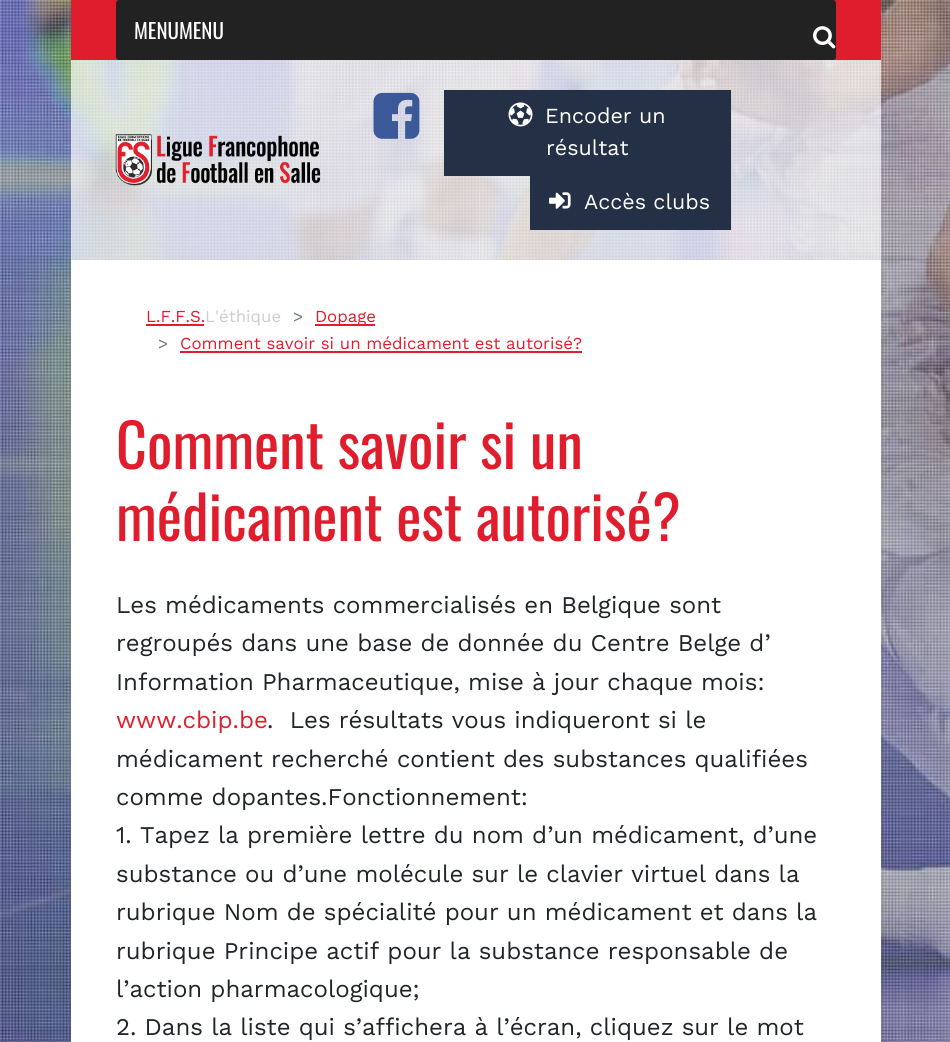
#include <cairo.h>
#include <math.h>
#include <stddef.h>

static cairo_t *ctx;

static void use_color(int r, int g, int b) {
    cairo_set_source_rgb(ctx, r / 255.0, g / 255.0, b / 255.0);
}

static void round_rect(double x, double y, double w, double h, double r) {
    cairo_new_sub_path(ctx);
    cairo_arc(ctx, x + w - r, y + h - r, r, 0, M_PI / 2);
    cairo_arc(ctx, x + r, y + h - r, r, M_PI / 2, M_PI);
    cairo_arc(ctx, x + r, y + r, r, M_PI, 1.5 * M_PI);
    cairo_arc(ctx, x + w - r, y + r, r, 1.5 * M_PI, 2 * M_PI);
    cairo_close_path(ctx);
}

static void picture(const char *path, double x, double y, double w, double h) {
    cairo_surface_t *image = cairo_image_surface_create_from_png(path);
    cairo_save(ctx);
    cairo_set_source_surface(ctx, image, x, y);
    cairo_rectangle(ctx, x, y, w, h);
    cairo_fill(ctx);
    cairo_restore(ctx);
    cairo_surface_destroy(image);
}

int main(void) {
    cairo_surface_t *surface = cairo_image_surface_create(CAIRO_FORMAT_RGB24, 950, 1042);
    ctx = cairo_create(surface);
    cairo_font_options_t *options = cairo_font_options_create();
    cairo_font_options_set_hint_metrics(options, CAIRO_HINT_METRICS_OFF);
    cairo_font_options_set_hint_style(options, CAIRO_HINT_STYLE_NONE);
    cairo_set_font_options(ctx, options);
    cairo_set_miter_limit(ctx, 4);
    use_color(255, 255, 255);
    cairo_paint(ctx);
    picture("img1.png", 0, 0, 950, 1042);
    use_color(224, 29, 44);
    cairo_rectangle(ctx, 71, 0, 810, 60);
    cairo_fill(ctx);
    use_color(34, 34, 34);
    round_rect(116, 0, 720, 60, 3);
    cairo_fill(ctx);
    cairo_select_font_face(ctx, "Oswald", CAIRO_FONT_SLANT_NORMAL, CAIRO_FONT_WEIGHT_NORMAL);
    cairo_set_font_size(ctx, 21);
    use_color(255, 255, 255);
    cairo_move_to(ctx, 134, 39);
    cairo_show_text(ctx, "MENUMENU");
    picture("img2.png", 813, 26, 23, 23);
    cairo_set_source_rgba(ctx, 1, 1, 1, 0.7);
    cairo_rectangle(ctx, 71, 60, 810, 200);
    cairo_fill(ctx);
    picture("img3.png", 115, 134, 206, 52);
    picture("img4.png", 373, 92, 47, 47);
    use_color(35, 48, 70);
    cairo_rectangle(ctx, 444, 90, 287, 86);
    cairo_fill(ctx);
    picture("img5.png", 508, 102, 25, 25);
    cairo_select_font_face(ctx, "Work Sans", CAIRO_FONT_SLANT_NORMAL, CAIRO_FONT_WEIGHT_NORMAL);
    cairo_set_font_size(ctx, 21.5);
    use_color(255, 255, 255);
    cairo_move_to(ctx, 545, 123);
    cairo_show_text(ctx, "Encoder un");
    cairo_move_to(ctx, 546, 155);
    cairo_show_text(ctx, "résultat");
    use_color(35, 48, 70);
    cairo_rectangle(ctx, 530, 176, 201, 54);
    cairo_fill(ctx);
    picture("img6.png", 549, 192, 22, 17);
    use_color(255, 255, 255);
    cairo_move_to(ctx, 584, 209);
    cairo_show_text(ctx, "Accès clubs");
    cairo_rectangle(ctx, 71, 260, 810, 782);
    cairo_fill(ctx);
    cairo_set_font_size(ctx, 16.8);
    use_color(224, 29, 44);
    cairo_move_to(ctx, 146, 322);
    cairo_show_text(ctx, "L.F.F.S.");
    cairo_rectangle(ctx, 146, 324, 58, 2);
    cairo_fill(ctx);
    use_color(204, 204, 204);
    cairo_move_to(ctx, 205, 322);
    cairo_show_text(ctx, "L'éthique");
    use_color(108, 117, 125);
    cairo_move_to(ctx, 293, 322);
    cairo_show_text(ctx, ">");
    use_color(224, 29, 44);
    cairo_rectangle(ctx, 315, 324, 60, 2);
    cairo_fill(ctx);
    cairo_move_to(ctx, 315, 322);
    cairo_show_text(ctx, "Dopage");
    use_color(108, 117, 125);
    cairo_move_to(ctx, 158, 349);
    cairo_show_text(ctx, ">");
    use_color(224, 29, 44);
    cairo_move_to(ctx, 180, 349);
    cairo_show_text(ctx, "Comment savoir si un médicament est autorisé?");
    cairo_rectangle(ctx, 180, 351, 402, 2);
    cairo_fill(ctx);
    cairo_select_font_face(ctx, "Oswald", CAIRO_FONT_SLANT_NORMAL, CAIRO_FONT_WEIGHT_NORMAL);
    cairo_set_font_size(ctx, 60);
    cairo_move_to(ctx, 116, 469);
    cairo_show_text(ctx, "Comment savoir si un");
    cairo_move_to(ctx, 116, 541);
    cairo_show_text(ctx, "médicament est autorisé?");
    cairo_select_font_face(ctx, "Work Sans", CAIRO_FONT_SLANT_NORMAL, CAIRO_FONT_WEIGHT_NORMAL);
    cairo_set_font_size(ctx, 24);
    use_color(33, 37, 41);
    cairo_move_to(ctx, 116, 613);
    cairo_show_text(ctx, "Les médicaments commercialisés en Belgique sont");
    cairo_move_to(ctx, 116, 651);
    cairo_show_text(ctx, "regroupés dans une base de donnée du Centre Belge d’");
    cairo_move_to(ctx, 116, 690);
    cairo_show_text(ctx, "Information Pharmaceutique, mise à jour chaque mois:");
    use_color(224, 29, 44);
    cairo_move_to(ctx, 116, 728);
    cairo_show_text(ctx, "www.cbip.be");
    use_color(33, 37, 41);
    cairo_move_to(ctx, 267, 728);
    cairo_show_text(ctx, ".  Les résultats vous indiqueront si le");
    cairo_move_to(ctx, 116, 767);
    cairo_show_text(ctx, "médicament recherché contient des substances qualifiées");
    cairo_move_to(ctx, 116, 805);
    cairo_show_text(ctx, "comme dopantes.Fonctionnement:");
    cairo_move_to(ctx, 116, 843);
    cairo_show_text(ctx, "1. Tapez la première lettre du nom d’un médicament, d’une");
    cairo_move_to(ctx, 116, 882);
    cairo_show_text(ctx, "substance ou d’une molécule sur le clavier virtuel dans la");
    cairo_move_to(ctx, 116, 920);
    cairo_show_text(ctx, "rubrique Nom de spécialité pour un médicament et dans la");
    cairo_move_to(ctx, 116, 959);
    cairo_show_text(ctx, "rubrique Principe actif pour la substance responsable de");
    cairo_move_to(ctx, 116, 997);
    cairo_show_text(ctx, "l’action pharmacologique;");
    cairo_move_to(ctx, 116, 1035);
    cairo_show_text(ctx, "2. Dans la liste qui s’affichera à l’écran, cliquez sur le mot");
    cairo_surface_write_to_png(surface, "result.png");
    cairo_font_options_destroy(options);
    cairo_destroy(ctx);
    cairo_surface_destroy(surface);
    return 0;
}
